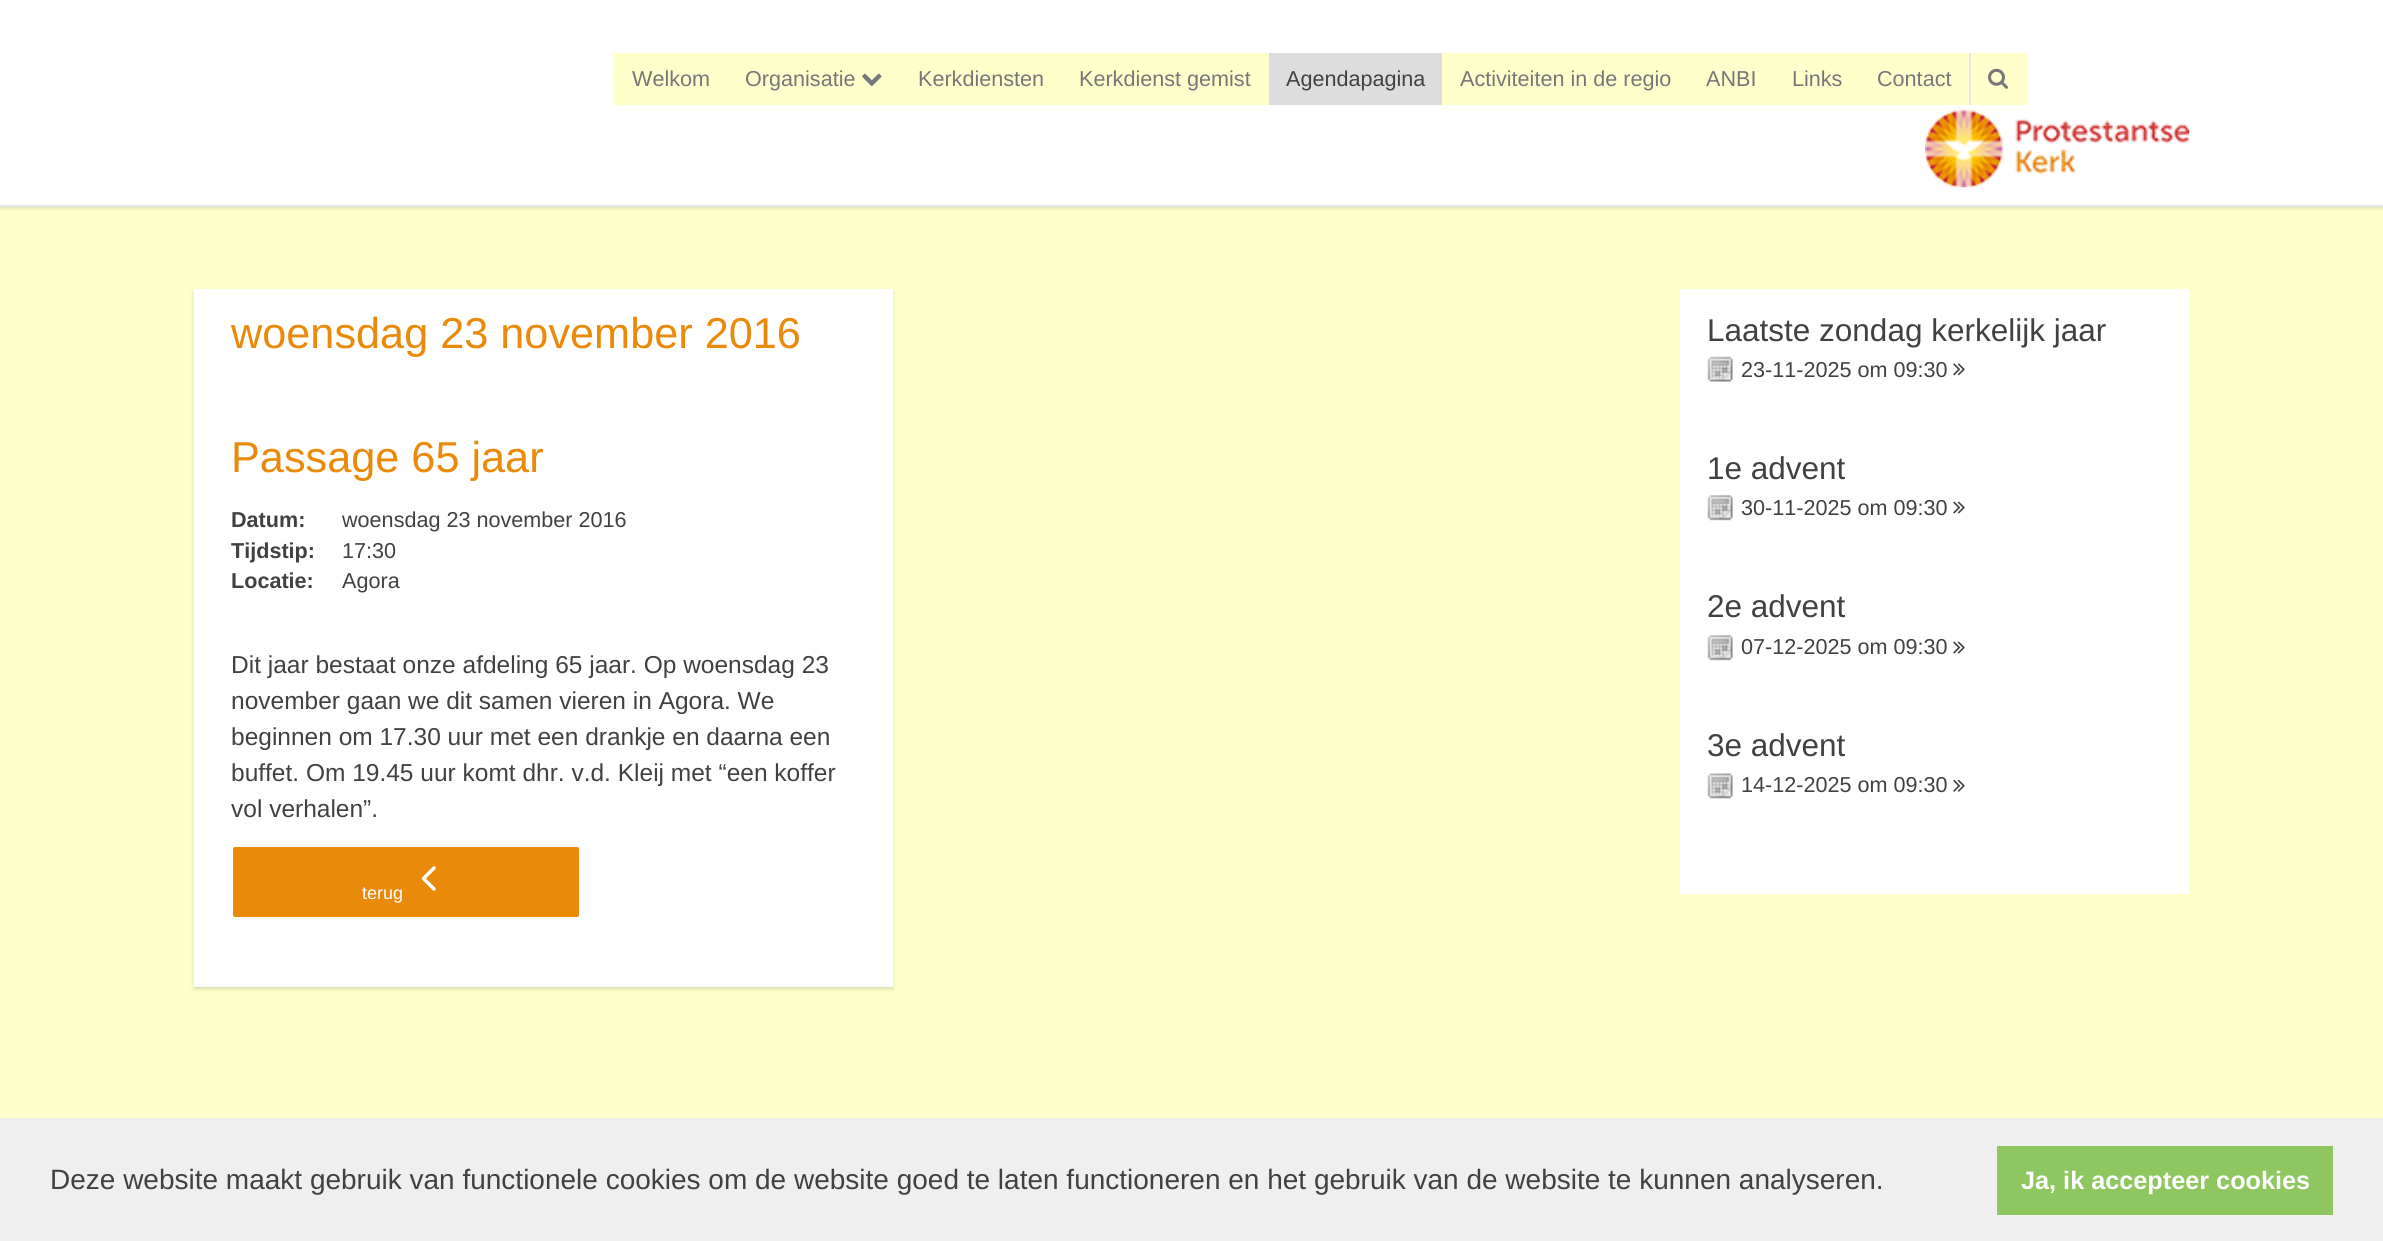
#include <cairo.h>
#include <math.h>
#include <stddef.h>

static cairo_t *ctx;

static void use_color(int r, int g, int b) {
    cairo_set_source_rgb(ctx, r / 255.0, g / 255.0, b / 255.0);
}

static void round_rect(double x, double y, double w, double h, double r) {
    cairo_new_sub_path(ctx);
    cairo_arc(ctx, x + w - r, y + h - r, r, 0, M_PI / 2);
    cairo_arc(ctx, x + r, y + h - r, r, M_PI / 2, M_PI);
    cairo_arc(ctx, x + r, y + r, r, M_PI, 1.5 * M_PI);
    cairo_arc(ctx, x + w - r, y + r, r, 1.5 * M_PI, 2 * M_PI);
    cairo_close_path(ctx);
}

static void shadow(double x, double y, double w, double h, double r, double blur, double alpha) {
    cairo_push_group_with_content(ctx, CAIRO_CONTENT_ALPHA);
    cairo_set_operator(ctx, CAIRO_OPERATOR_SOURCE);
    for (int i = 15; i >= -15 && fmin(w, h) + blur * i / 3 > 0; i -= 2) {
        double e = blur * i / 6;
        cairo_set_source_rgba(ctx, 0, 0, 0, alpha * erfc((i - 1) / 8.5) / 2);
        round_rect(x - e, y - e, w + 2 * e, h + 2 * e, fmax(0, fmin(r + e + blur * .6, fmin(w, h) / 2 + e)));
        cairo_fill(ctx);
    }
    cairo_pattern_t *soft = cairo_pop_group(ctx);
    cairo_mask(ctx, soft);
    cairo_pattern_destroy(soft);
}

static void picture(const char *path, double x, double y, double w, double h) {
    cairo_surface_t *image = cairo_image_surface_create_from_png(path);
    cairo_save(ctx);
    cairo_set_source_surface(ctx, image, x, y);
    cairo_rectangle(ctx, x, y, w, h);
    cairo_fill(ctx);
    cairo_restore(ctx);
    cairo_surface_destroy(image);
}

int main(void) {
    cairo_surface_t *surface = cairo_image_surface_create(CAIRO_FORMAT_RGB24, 2383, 1241);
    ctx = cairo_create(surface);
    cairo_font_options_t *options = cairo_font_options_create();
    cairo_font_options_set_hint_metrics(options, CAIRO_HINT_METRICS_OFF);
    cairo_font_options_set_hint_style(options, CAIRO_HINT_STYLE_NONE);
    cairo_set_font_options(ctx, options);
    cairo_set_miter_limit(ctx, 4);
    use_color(255, 255, 204);
    cairo_paint(ctx);
    use_color(0, 0, 0);
    shadow(0, 0, 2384, 207, 0, 2.5, 0.22);
    use_color(255, 255, 255);
    cairo_rectangle(ctx, 0, 0, 2383, 205);
    cairo_fill(ctx);
    use_color(231, 231, 231);
    cairo_rectangle(ctx, 0, 205, 2383, 2);
    cairo_fill(ctx);
    use_color(255, 255, 204);
    cairo_rectangle(ctx, 614, 53, 655, 52);
    cairo_fill(ctx);
    cairo_select_font_face(ctx, "Liberation Sans", CAIRO_FONT_SLANT_NORMAL, CAIRO_FONT_WEIGHT_NORMAL);
    cairo_set_font_size(ctx, 21.6);
    use_color(119, 119, 119);
    cairo_move_to(ctx, 632, 86);
    cairo_show_text(ctx, "Welkom");
    cairo_move_to(ctx, 745, 86);
    cairo_show_text(ctx, "Organisatie");
    picture("img1.png", 862, 73, 20, 14);
    cairo_move_to(ctx, 918, 86);
    cairo_show_text(ctx, "Kerkdiensten");
    cairo_move_to(ctx, 1079, 86);
    cairo_show_text(ctx, "Kerkdienst gemist");
    use_color(221, 221, 221);
    cairo_rectangle(ctx, 1269, 53, 173, 52);
    cairo_fill(ctx);
    use_color(65, 65, 65);
    cairo_move_to(ctx, 1286, 86);
    cairo_show_text(ctx, "Agendapagina");
    use_color(255, 255, 204);
    cairo_rectangle(ctx, 1442, 53, 527, 52);
    cairo_fill(ctx);
    use_color(119, 119, 119);
    cairo_move_to(ctx, 1460, 86);
    cairo_show_text(ctx, "Activiteiten in de regio");
    cairo_move_to(ctx, 1706, 86);
    cairo_show_text(ctx, "ANBI");
    cairo_move_to(ctx, 1792, 86);
    cairo_show_text(ctx, "Links");
    cairo_move_to(ctx, 1877, 86);
    cairo_show_text(ctx, "Contact");
    use_color(255, 255, 204);
    cairo_rectangle(ctx, 1971, 53, 56, 52);
    cairo_fill(ctx);
    use_color(231, 231, 231);
    cairo_rectangle(ctx, 1969, 53, 2, 52);
    cairo_fill(ctx);
    picture("img2.png", 1988, 68, 20, 21);
    picture("img3.png", 1925, 110, 265, 78);
    use_color(0, 0, 0);
    shadow(194, 291, 699, 698, 0, 2, 0.15);
    use_color(255, 255, 255);
    cairo_rectangle(ctx, 194, 289, 699, 698);
    cairo_fill(ctx);
    cairo_set_font_size(ctx, 43.25);
    use_color(234, 138, 10);
    cairo_move_to(ctx, 231, 348);
    cairo_show_text(ctx, "woensdag 23 november 2016");
    cairo_move_to(ctx, 231, 472);
    cairo_show_text(ctx, "Passage 65 jaar");
    cairo_select_font_face(ctx, "Liberation Sans", CAIRO_FONT_SLANT_NORMAL, CAIRO_FONT_WEIGHT_BOLD);
    cairo_set_font_size(ctx, 21.6);
    use_color(65, 65, 65);
    cairo_move_to(ctx, 231, 527);
    cairo_show_text(ctx, "Datum:");
    cairo_select_font_face(ctx, "Liberation Sans", CAIRO_FONT_SLANT_NORMAL, CAIRO_FONT_WEIGHT_NORMAL);
    cairo_move_to(ctx, 342, 527);
    cairo_show_text(ctx, "woensdag 23 november 2016");
    cairo_select_font_face(ctx, "Liberation Sans", CAIRO_FONT_SLANT_NORMAL, CAIRO_FONT_WEIGHT_BOLD);
    cairo_move_to(ctx, 231, 558);
    cairo_show_text(ctx, "Tijdstip:");
    cairo_select_font_face(ctx, "Liberation Sans", CAIRO_FONT_SLANT_NORMAL, CAIRO_FONT_WEIGHT_NORMAL);
    cairo_move_to(ctx, 342, 558);
    cairo_show_text(ctx, "17:30");
    cairo_select_font_face(ctx, "Liberation Sans", CAIRO_FONT_SLANT_NORMAL, CAIRO_FONT_WEIGHT_BOLD);
    cairo_move_to(ctx, 231, 588);
    cairo_show_text(ctx, "Locatie:");
    cairo_select_font_face(ctx, "Liberation Sans", CAIRO_FONT_SLANT_NORMAL, CAIRO_FONT_WEIGHT_NORMAL);
    cairo_move_to(ctx, 342, 588);
    cairo_show_text(ctx, "Agora");
    cairo_set_font_size(ctx, 24.5);
    cairo_move_to(ctx, 231, 673);
    cairo_show_text(ctx, "Dit jaar bestaat onze afdeling 65 jaar. Op woensdag 23");
    cairo_move_to(ctx, 231, 709);
    cairo_show_text(ctx, "november gaan we dit samen vieren in Agora. We");
    cairo_move_to(ctx, 231, 745);
    cairo_show_text(ctx, "beginnen om 17.30 uur met een drankje en daarna een");
    cairo_move_to(ctx, 231, 781);
    cairo_show_text(ctx, "buffet. Om 19.45 uur komt dhr. v.d. Kleij met “een koffer");
    cairo_move_to(ctx, 231, 817);
    cairo_show_text(ctx, "vol verhalen”.");
    use_color(234, 138, 10);
    round_rect(232, 846, 348, 72, 3);
    cairo_fill_preserve(ctx);
    use_color(255, 255, 255);
    cairo_stroke(ctx);
    cairo_new_path(ctx);
    cairo_move_to(ctx, 434, 889);
    cairo_line_to(ctx, 423.5, 878.5);
    cairo_line_to(ctx, 434, 868);
    cairo_set_line_width(ctx, 3.5);
    cairo_set_line_cap(ctx, CAIRO_LINE_CAP_ROUND);
    cairo_set_line_join(ctx, CAIRO_LINE_JOIN_ROUND);
    cairo_stroke(ctx);
    cairo_set_font_size(ctx, 18);
    cairo_move_to(ctx, 362, 899);
    cairo_show_text(ctx, "terug");
    cairo_rectangle(ctx, 1680, 289, 509, 605);
    cairo_fill(ctx);
    cairo_set_font_size(ctx, 31.5);
    use_color(65, 65, 65);
    cairo_move_to(ctx, 1707, 341);
    cairo_show_text(ctx, "Laatste zondag kerkelijk jaar");
    picture("img4.png", 1707, 356, 26, 26);
    cairo_set_font_size(ctx, 21.6);
    cairo_move_to(ctx, 1741, 377);
    cairo_show_text(ctx, "23-11-2025 om 09:30");
    picture("img5.png", 1953, 363, 12, 13);
    cairo_set_font_size(ctx, 31.5);
    cairo_move_to(ctx, 1707, 479);
    cairo_show_text(ctx, "1e advent");
    picture("img6.png", 1707, 494, 26, 27);
    cairo_set_font_size(ctx, 21.6);
    cairo_move_to(ctx, 1741, 515);
    cairo_show_text(ctx, "30-11-2025 om 09:30");
    picture("img7.png", 1953, 501, 12, 13);
    cairo_set_font_size(ctx, 31.5);
    cairo_move_to(ctx, 1707, 617);
    cairo_show_text(ctx, "2e advent");
    picture("img6.png", 1707, 634, 26, 27);
    cairo_set_font_size(ctx, 21.6);
    cairo_move_to(ctx, 1741, 654);
    cairo_show_text(ctx, "07-12-2025 om 09:30");
    picture("img7.png", 1953, 641, 12, 13);
    cairo_set_font_size(ctx, 31.5);
    cairo_move_to(ctx, 1707, 756);
    cairo_show_text(ctx, "3e advent");
    picture("img8.png", 1707, 773, 26, 26);
    cairo_set_font_size(ctx, 21.6);
    cairo_move_to(ctx, 1741, 792);
    cairo_show_text(ctx, "14-12-2025 om 09:30");
    picture("img9.png", 1953, 779, 12, 13);
    use_color(239, 239, 239);
    cairo_rectangle(ctx, 0, 1118, 2383, 123);
    cairo_fill(ctx);
    cairo_set_font_size(ctx, 28);
    use_color(65, 65, 65);
    cairo_move_to(ctx, 50, 1189);
    cairo_show_text(ctx, "Deze website maakt gebruik van functionele cookies om de website goed te laten functioneren en het gebruik van de website te kunnen analyseren.");
    use_color(142, 199, 96);
    cairo_rectangle(ctx, 1997, 1146, 336, 69);
    cairo_fill(ctx);
    cairo_select_font_face(ctx, "Liberation Sans", CAIRO_FONT_SLANT_NORMAL, CAIRO_FONT_WEIGHT_BOLD);
    cairo_set_font_size(ctx, 25.25);
    use_color(255, 255, 255);
    cairo_move_to(ctx, 2021, 1189);
    cairo_show_text(ctx, "Ja, ik accepteer cookies");
    cairo_surface_write_to_png(surface, "result.png");
    cairo_font_options_destroy(options);
    cairo_destroy(ctx);
    cairo_surface_destroy(surface);
    return 0;
}
